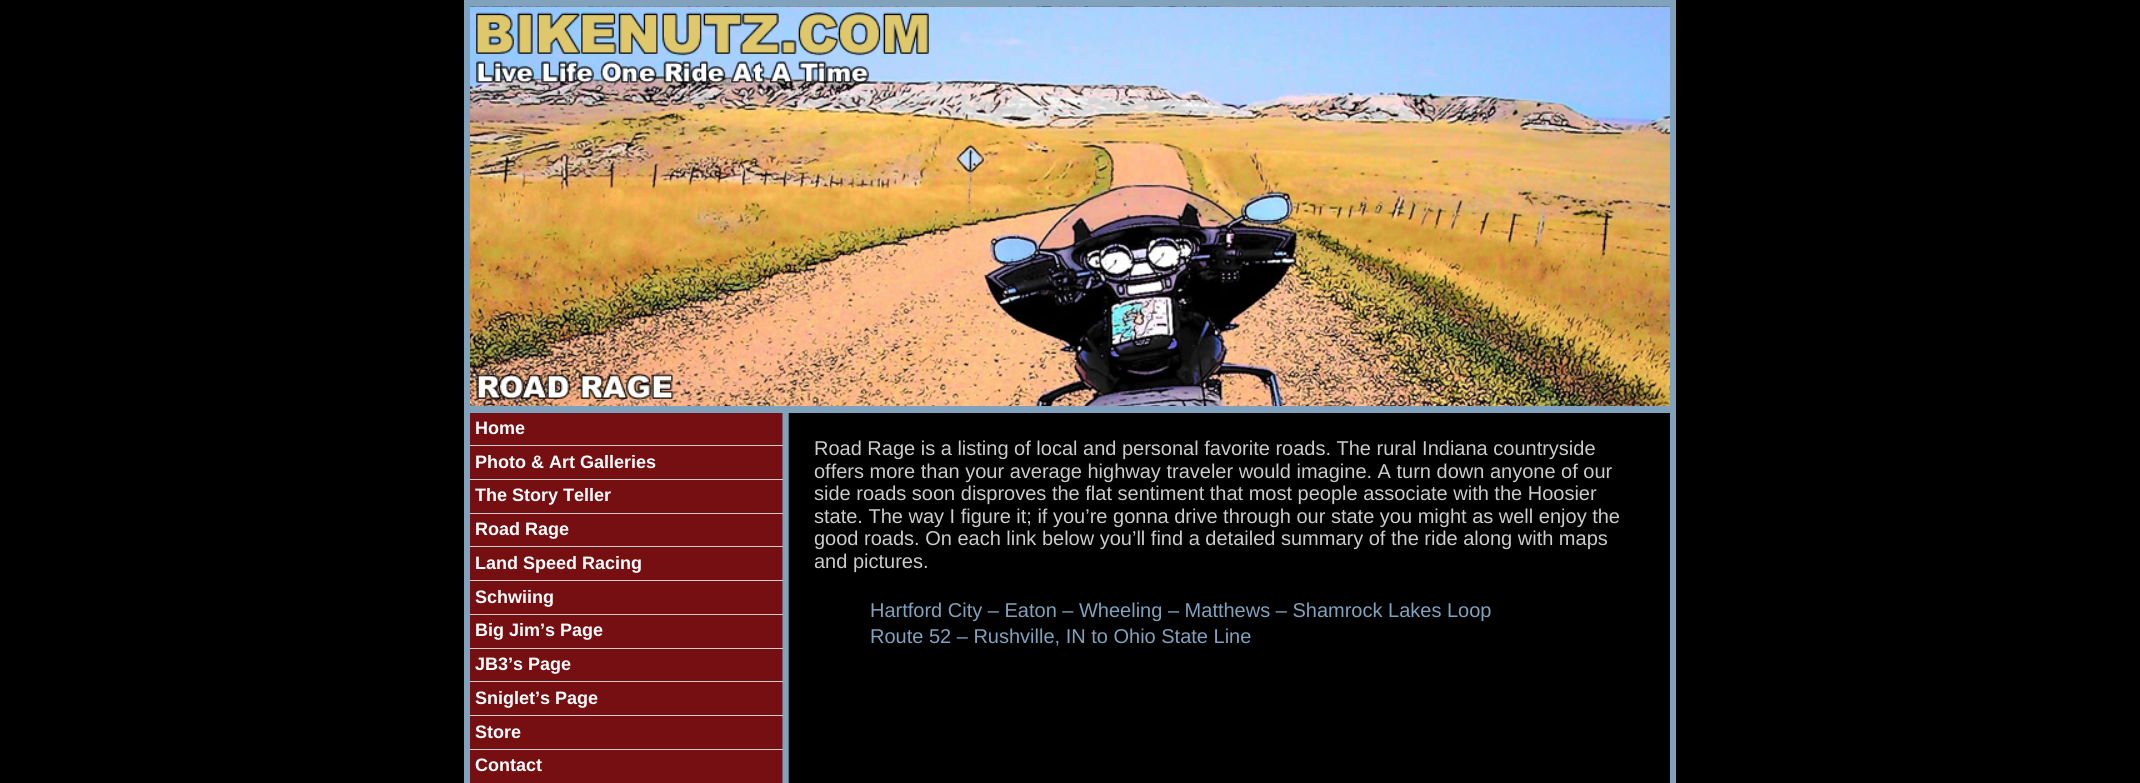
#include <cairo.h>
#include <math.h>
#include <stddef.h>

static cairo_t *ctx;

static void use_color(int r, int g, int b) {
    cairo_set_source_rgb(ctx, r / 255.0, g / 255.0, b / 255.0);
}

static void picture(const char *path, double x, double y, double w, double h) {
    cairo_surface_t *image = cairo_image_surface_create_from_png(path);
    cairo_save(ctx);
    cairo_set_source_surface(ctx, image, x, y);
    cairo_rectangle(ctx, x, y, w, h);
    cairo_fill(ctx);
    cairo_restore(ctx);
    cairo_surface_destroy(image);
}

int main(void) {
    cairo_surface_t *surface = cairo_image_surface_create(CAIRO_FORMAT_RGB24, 2140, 783);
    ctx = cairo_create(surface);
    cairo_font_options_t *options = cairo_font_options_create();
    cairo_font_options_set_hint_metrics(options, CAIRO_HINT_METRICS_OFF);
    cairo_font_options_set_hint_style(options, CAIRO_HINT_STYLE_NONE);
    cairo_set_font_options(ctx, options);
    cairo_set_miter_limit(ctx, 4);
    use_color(0, 0, 0);
    cairo_paint(ctx);
    cairo_rectangle(ctx, 467, 3, 1206, 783);
    use_color(128, 162, 189);
    cairo_set_line_width(ctx, 6);
    cairo_stroke(ctx);
    picture("img1.png", 470, 6, 1200, 400);
    cairo_rectangle(ctx, 470, 406, 1200, 7);
    cairo_fill(ctx);
    picture("img2.png", 476, 12, 453, 72);
    picture("img3.png", 476, 373, 198, 28);
    picture("img4.png", 470, 413, 320, 370);
    use_color(204, 204, 204);
    cairo_rectangle(ctx, 470, 445, 313, 1);
    cairo_fill(ctx);
    cairo_select_font_face(ctx, "Liberation Sans", CAIRO_FONT_SLANT_NORMAL, CAIRO_FONT_WEIGHT_BOLD);
    cairo_set_font_size(ctx, 18);
    use_color(255, 255, 255);
    cairo_move_to(ctx, 475, 434);
    cairo_show_text(ctx, "Home");
    use_color(204, 204, 204);
    cairo_rectangle(ctx, 470, 479, 313, 1);
    cairo_fill(ctx);
    use_color(255, 255, 255);
    cairo_move_to(ctx, 475, 468);
    cairo_show_text(ctx, "Photo & Art Galleries");
    use_color(204, 204, 204);
    cairo_rectangle(ctx, 470, 513, 313, 1);
    cairo_fill(ctx);
    use_color(255, 255, 255);
    cairo_move_to(ctx, 475, 501);
    cairo_show_text(ctx, "The Story Teller");
    use_color(204, 204, 204);
    cairo_rectangle(ctx, 470, 546, 313, 1);
    cairo_fill(ctx);
    use_color(255, 255, 255);
    cairo_move_to(ctx, 475, 535);
    cairo_show_text(ctx, "Road Rage");
    use_color(204, 204, 204);
    cairo_rectangle(ctx, 470, 580, 313, 1);
    cairo_fill(ctx);
    use_color(255, 255, 255);
    cairo_move_to(ctx, 475, 569);
    cairo_show_text(ctx, "Land Speed Racing");
    use_color(204, 204, 204);
    cairo_rectangle(ctx, 470, 614, 313, 1);
    cairo_fill(ctx);
    use_color(255, 255, 255);
    cairo_move_to(ctx, 475, 603);
    cairo_show_text(ctx, "Schwiing");
    use_color(204, 204, 204);
    cairo_rectangle(ctx, 470, 648, 313, 1);
    cairo_fill(ctx);
    use_color(255, 255, 255);
    cairo_move_to(ctx, 475, 636);
    cairo_show_text(ctx, "Big Jim’s Page");
    use_color(204, 204, 204);
    cairo_rectangle(ctx, 470, 681, 313, 1);
    cairo_fill(ctx);
    use_color(255, 255, 255);
    cairo_move_to(ctx, 475, 670);
    cairo_show_text(ctx, "JB3’s Page");
    use_color(204, 204, 204);
    cairo_rectangle(ctx, 470, 715, 313, 1);
    cairo_fill(ctx);
    use_color(255, 255, 255);
    cairo_move_to(ctx, 475, 704);
    cairo_show_text(ctx, "Sniglet’s Page");
    use_color(204, 204, 204);
    cairo_rectangle(ctx, 470, 749, 313, 1);
    cairo_fill(ctx);
    use_color(255, 255, 255);
    cairo_move_to(ctx, 475, 738);
    cairo_show_text(ctx, "Store");
    cairo_move_to(ctx, 475, 771);
    cairo_show_text(ctx, "Contact");
    cairo_select_font_face(ctx, "Liberation Sans", CAIRO_FONT_SLANT_NORMAL, CAIRO_FONT_WEIGHT_NORMAL);
    cairo_set_font_size(ctx, 20);
    use_color(204, 204, 204);
    cairo_move_to(ctx, 814, 455);
    cairo_show_text(ctx, "Road Rage is a listing of local and personal favorite roads. The rural Indiana countryside");
    cairo_move_to(ctx, 814, 478);
    cairo_show_text(ctx, "offers more than your average highway traveler would imagine. A turn down anyone of our");
    cairo_move_to(ctx, 814, 500);
    cairo_show_text(ctx, "side roads soon disproves the flat sentiment that most people associate with the Hoosier");
    cairo_move_to(ctx, 814, 523);
    cairo_show_text(ctx, "state. The way I figure it; if you’re gonna drive through our state you might as well enjoy the");
    cairo_move_to(ctx, 814, 545);
    cairo_show_text(ctx, "good roads. On each link below you’ll find a detailed summary of the ride along with maps");
    cairo_move_to(ctx, 814, 568);
    cairo_show_text(ctx, "and pictures.");
    use_color(128, 162, 189);
    cairo_move_to(ctx, 870, 617);
    cairo_show_text(ctx, "Hartford City – Eaton – Wheeling – Matthews – Shamrock Lakes Loop");
    cairo_move_to(ctx, 870, 643);
    cairo_show_text(ctx, "Route 52 – Rushville, IN to Ohio State Line");
    cairo_surface_write_to_png(surface, "result.png");
    cairo_font_options_destroy(options);
    cairo_destroy(ctx);
    cairo_surface_destroy(surface);
    return 0;
}
